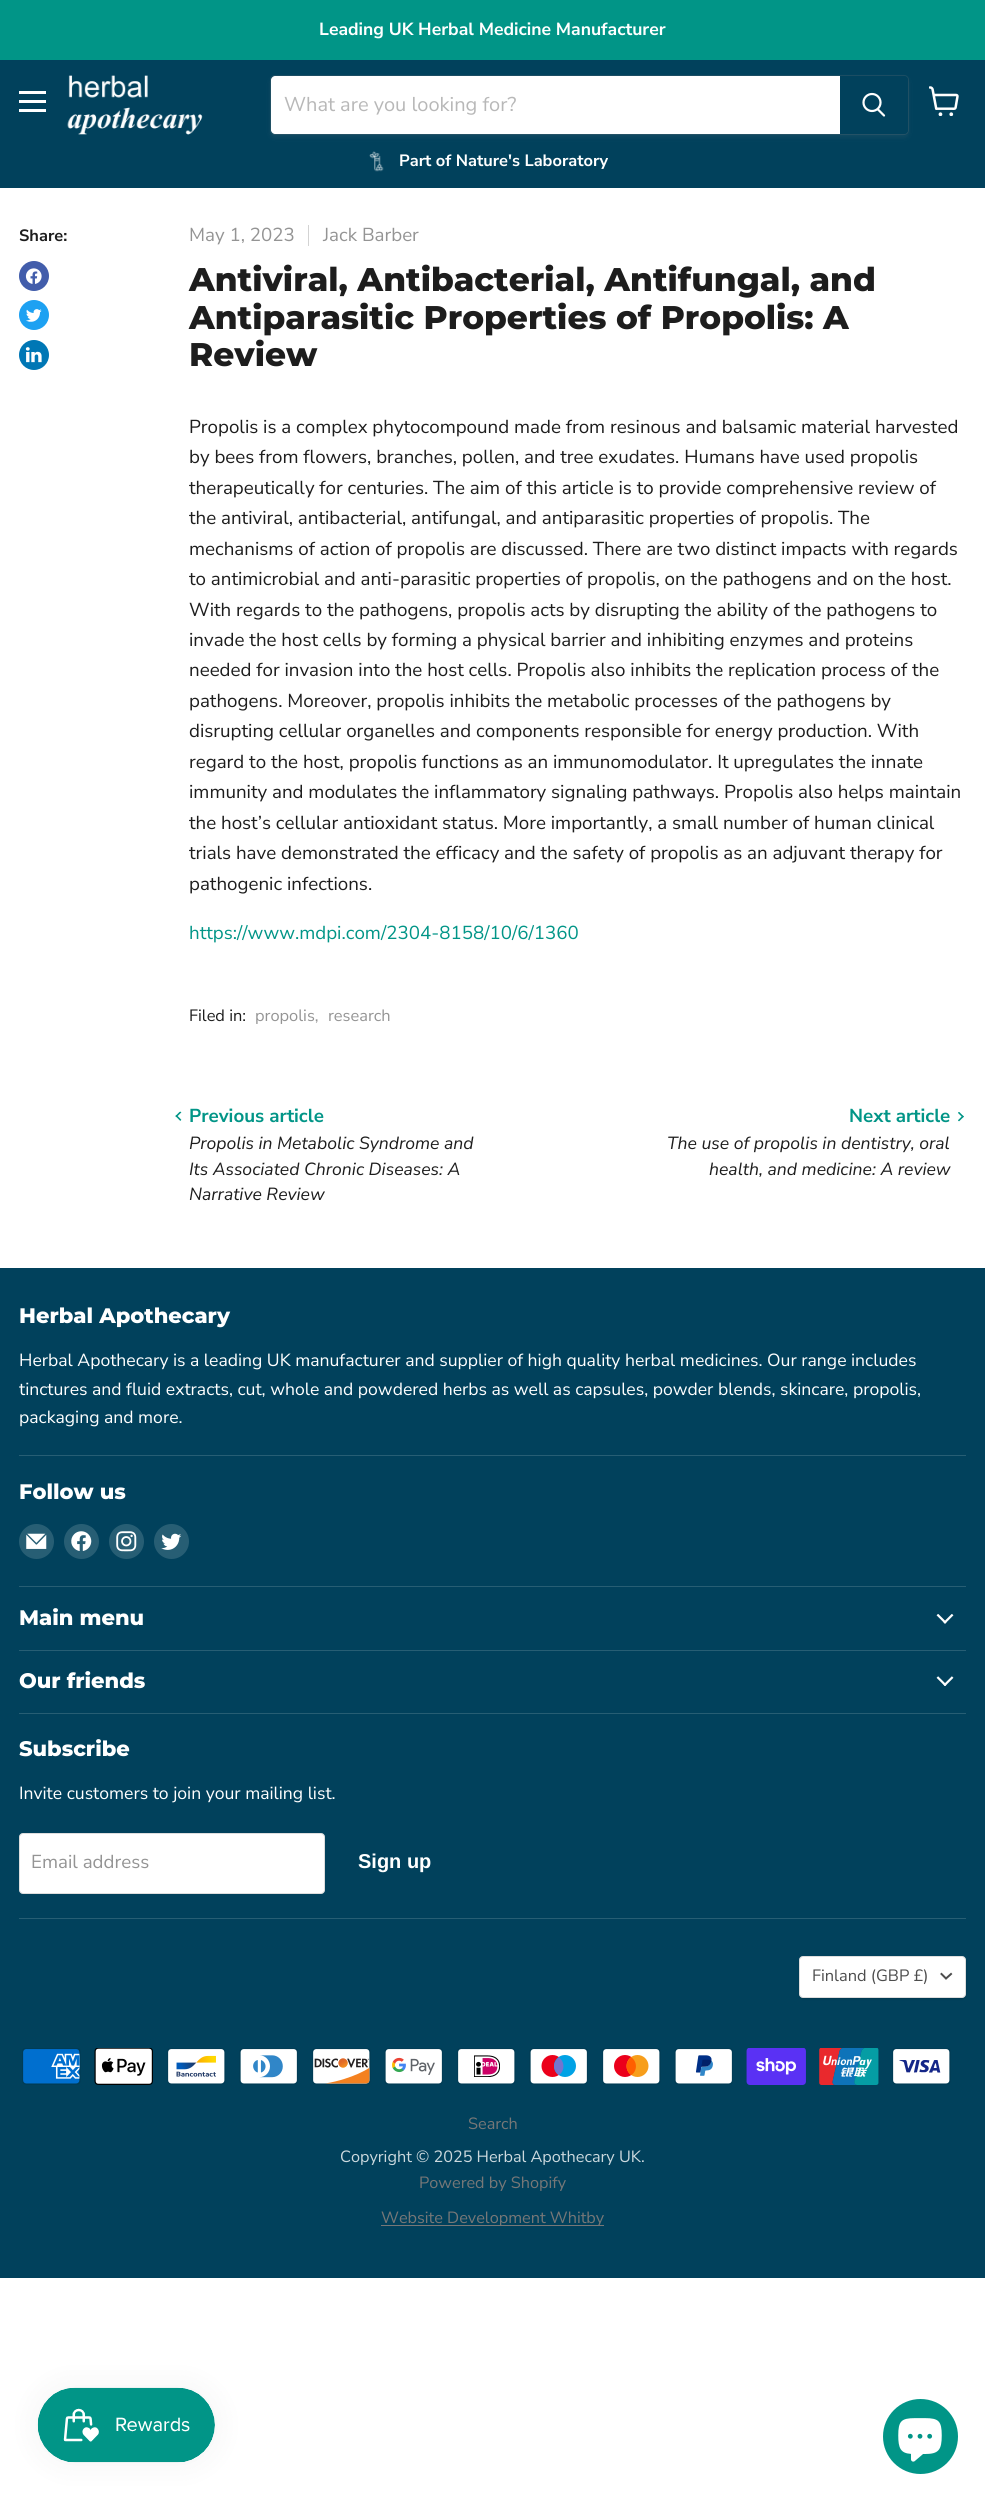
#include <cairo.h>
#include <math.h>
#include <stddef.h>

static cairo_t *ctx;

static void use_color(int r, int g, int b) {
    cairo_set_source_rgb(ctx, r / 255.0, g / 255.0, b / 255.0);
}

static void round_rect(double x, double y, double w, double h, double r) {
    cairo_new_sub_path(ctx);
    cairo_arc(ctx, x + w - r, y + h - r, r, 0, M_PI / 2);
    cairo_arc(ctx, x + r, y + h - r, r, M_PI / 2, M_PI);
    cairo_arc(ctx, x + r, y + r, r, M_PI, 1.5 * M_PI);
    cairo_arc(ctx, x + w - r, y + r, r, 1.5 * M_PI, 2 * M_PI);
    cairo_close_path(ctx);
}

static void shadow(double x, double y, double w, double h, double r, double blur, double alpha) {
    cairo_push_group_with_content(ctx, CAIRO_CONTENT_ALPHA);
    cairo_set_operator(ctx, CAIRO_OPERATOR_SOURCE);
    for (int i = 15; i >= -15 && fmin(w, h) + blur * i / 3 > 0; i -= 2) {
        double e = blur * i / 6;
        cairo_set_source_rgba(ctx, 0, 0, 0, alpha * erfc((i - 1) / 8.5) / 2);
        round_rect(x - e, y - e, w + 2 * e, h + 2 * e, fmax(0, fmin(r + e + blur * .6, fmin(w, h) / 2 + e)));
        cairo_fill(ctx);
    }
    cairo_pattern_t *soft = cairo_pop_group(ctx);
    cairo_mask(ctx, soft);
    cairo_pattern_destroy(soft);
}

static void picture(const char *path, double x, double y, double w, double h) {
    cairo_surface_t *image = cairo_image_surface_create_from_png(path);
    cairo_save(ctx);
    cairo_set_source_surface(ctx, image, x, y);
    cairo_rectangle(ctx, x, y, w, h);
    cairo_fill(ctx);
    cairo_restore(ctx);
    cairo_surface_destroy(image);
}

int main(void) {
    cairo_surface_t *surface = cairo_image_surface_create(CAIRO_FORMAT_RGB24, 985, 2500);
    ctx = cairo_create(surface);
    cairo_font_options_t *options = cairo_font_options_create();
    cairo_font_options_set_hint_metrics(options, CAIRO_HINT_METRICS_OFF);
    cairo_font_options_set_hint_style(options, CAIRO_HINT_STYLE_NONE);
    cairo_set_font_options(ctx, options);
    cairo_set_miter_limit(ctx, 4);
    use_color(255, 255, 255);
    cairo_paint(ctx);
    use_color(1, 149, 135);
    cairo_rectangle(ctx, 0, 0, 985, 60);
    cairo_fill(ctx);
    cairo_select_font_face(ctx, "Nunito Sans", CAIRO_FONT_SLANT_NORMAL, CAIRO_FONT_WEIGHT_BOLD);
    cairo_set_font_size(ctx, 17.58);
    use_color(255, 255, 255);
    cairo_move_to(ctx, 319, 35);
    cairo_show_text(ctx, "Leading UK Herbal Medicine Manufacturer");
    use_color(1, 65, 92);
    cairo_rectangle(ctx, 0, 60, 985, 128);
    cairo_fill(ctx);
    use_color(255, 255, 255);
    cairo_rectangle(ctx, 19, 91, 27, 3);
    cairo_fill(ctx);
    cairo_rectangle(ctx, 19, 100, 27, 3);
    cairo_fill(ctx);
    cairo_rectangle(ctx, 19, 109, 27, 3);
    cairo_fill(ctx);
    picture("img1.png", 67, 75, 136, 60);
    use_color(128, 128, 128);
    shadow(270, 78, 639, 60, 5, 2, 0.11);
    round_rect(270.5, 75.5, 638, 59, 4.5);
    cairo_set_source_rgba(ctx, 0.502, 0.502, 0.502, 0.2);
    cairo_set_line_width(ctx, 1);
    cairo_stroke(ctx);
    use_color(255, 255, 255);
    cairo_new_path(ctx);
    cairo_move_to(ctx, 275, 76);
    cairo_line_to(ctx, 840, 76);
    cairo_line_to(ctx, 840, 134);
    cairo_line_to(ctx, 275, 134);
    cairo_curve_to(ctx, 273, 134, 271, 132, 271, 130);
    cairo_line_to(ctx, 271, 80);
    cairo_curve_to(ctx, 271, 78, 273, 76, 275, 76);
    cairo_close_path(ctx);
    cairo_fill(ctx);
    cairo_select_font_face(ctx, "Nunito Sans", CAIRO_FONT_SLANT_NORMAL, CAIRO_FONT_WEIGHT_NORMAL);
    cairo_set_font_size(ctx, 20);
    use_color(184, 184, 184);
    cairo_move_to(ctx, 284, 111);
    cairo_show_text(ctx, "What are you looking for?");
    use_color(1, 65, 92);
    cairo_new_path(ctx);
    cairo_move_to(ctx, 840.5, 76.5);
    cairo_line_to(ctx, 904, 76.5);
    cairo_curve_to(ctx, 906, 76.5, 907.5, 78, 907.5, 80);
    cairo_line_to(ctx, 907.5, 130);
    cairo_curve_to(ctx, 907.5, 132, 906, 133.5, 904, 133.5);
    cairo_line_to(ctx, 840.5, 133.5);
    cairo_close_path(ctx);
    cairo_fill_preserve(ctx);
    cairo_stroke(ctx);
    cairo_new_path(ctx);
    cairo_move_to(ctx, 884, 115.5);
    cairo_line_to(ctx, 878, 109.5);
    use_color(255, 255, 255);
    cairo_set_line_width(ctx, 2.2);
    cairo_set_line_cap(ctx, CAIRO_LINE_CAP_ROUND);
    cairo_stroke(ctx);
    cairo_arc(ctx, 872, 102.5, 8.5, 0, 2 * M_PI);
    cairo_set_line_cap(ctx, CAIRO_LINE_CAP_BUTT);
    cairo_stroke(ctx);
    picture("img2.png", 369, 151, 15, 21);
    cairo_select_font_face(ctx, "Nunito Sans", CAIRO_FONT_SLANT_NORMAL, CAIRO_FONT_WEIGHT_BOLD);
    cairo_set_font_size(ctx, 16.4);
    cairo_move_to(ctx, 399, 166);
    cairo_show_text(ctx, "Part of Nature's Laboratory");
    picture("img3.png", 929, 86, 30, 30);
    use_color(29, 29, 29);
    cairo_move_to(ctx, 19, 241);
    cairo_show_text(ctx, "Share:");
    use_color(66, 93, 171);
    cairo_new_path(ctx);
    cairo_arc(ctx, 34, 276, 15, 0, 2 * M_PI);
    cairo_fill(ctx);
    picture("img4.png", 25, 268, 17, 16);
    use_color(29, 161, 242);
    cairo_arc(ctx, 34, 315, 15, 0, 2 * M_PI);
    cairo_fill(ctx);
    picture("img5.png", 26, 309, 16, 13);
    use_color(0, 119, 181);
    cairo_arc(ctx, 34, 355, 15, 0, 2 * M_PI);
    cairo_fill(ctx);
    picture("img6.png", 25, 347, 17, 16);
    cairo_select_font_face(ctx, "Nunito Sans", CAIRO_FONT_SLANT_NORMAL, CAIRO_FONT_WEIGHT_NORMAL);
    cairo_set_font_size(ctx, 18.75);
    use_color(148, 148, 148);
    cairo_move_to(ctx, 189, 241);
    cairo_show_text(ctx, "May 1, 2023");
    use_color(211, 211, 211);
    cairo_rectangle(ctx, 308, 225, 1, 21);
    cairo_fill(ctx);
    use_color(148, 148, 148);
    cairo_move_to(ctx, 323, 241);
    cairo_show_text(ctx, "Jack Barber");
    cairo_select_font_face(ctx, "Montserrat ExtraBold", CAIRO_FONT_SLANT_NORMAL, CAIRO_FONT_WEIGHT_NORMAL);
    cairo_set_font_size(ctx, 32.8);
    use_color(29, 29, 29);
    cairo_move_to(ctx, 189, 291);
    cairo_show_text(ctx, "Antiviral, Antibacterial, Antifungal, and");
    cairo_move_to(ctx, 189, 329);
    cairo_show_text(ctx, "Antiparasitic Properties of Propolis: A");
    cairo_move_to(ctx, 189, 366);
    cairo_show_text(ctx, "Review");
    cairo_select_font_face(ctx, "Nunito Sans", CAIRO_FONT_SLANT_NORMAL, CAIRO_FONT_WEIGHT_NORMAL);
    cairo_set_font_size(ctx, 18.75);
    cairo_move_to(ctx, 189, 433);
    cairo_show_text(ctx, "Propolis is a complex phytocompound made from resinous and balsamic material harvested");
    cairo_move_to(ctx, 189, 463);
    cairo_show_text(ctx, "by bees from flowers, branches, pollen, and tree exudates. Humans have used propolis");
    cairo_move_to(ctx, 189, 494);
    cairo_show_text(ctx, "therapeutically for centuries. The aim of this article is to provide comprehensive review of");
    cairo_move_to(ctx, 189, 524);
    cairo_show_text(ctx, "the antiviral, antibacterial, antifungal, and antiparasitic properties of propolis. The");
    cairo_move_to(ctx, 189, 555);
    cairo_show_text(ctx, "mechanisms of action of propolis are discussed. There are two distinct impacts with regards");
    cairo_move_to(ctx, 189, 585);
    cairo_show_text(ctx, "to antimicrobial and anti-parasitic properties of propolis, on the pathogens and on the host.");
    cairo_move_to(ctx, 189, 616);
    cairo_show_text(ctx, "With regards to the pathogens, propolis acts by disrupting the ability of the pathogens to");
    cairo_move_to(ctx, 189, 646);
    cairo_show_text(ctx, "invade the host cells by forming a physical barrier and inhibiting enzymes and proteins");
    cairo_move_to(ctx, 189, 676);
    cairo_show_text(ctx, "needed for invasion into the host cells. Propolis also inhibits the replication process of the");
    cairo_move_to(ctx, 189, 707);
    cairo_show_text(ctx, "pathogens. Moreover, propolis inhibits the metabolic processes of the pathogens by");
    cairo_move_to(ctx, 189, 737);
    cairo_show_text(ctx, "disrupting cellular organelles and components responsible for energy production. With");
    cairo_move_to(ctx, 189, 768);
    cairo_show_text(ctx, "regard to the host, propolis functions as an immunomodulator. It upregulates the innate");
    cairo_move_to(ctx, 189, 798);
    cairo_show_text(ctx, "immunity and modulates the inflammatory signaling pathways. Propolis also helps maintain");
    cairo_move_to(ctx, 189, 829);
    cairo_show_text(ctx, "the host’s cellular antioxidant status. More importantly, a small number of human clinical");
    cairo_move_to(ctx, 189, 859);
    cairo_show_text(ctx, "trials have demonstrated the efficacy and the safety of propolis as an adjuvant therapy for");
    cairo_move_to(ctx, 189, 890);
    cairo_show_text(ctx, "pathogenic infections.");
    use_color(1, 149, 135);
    cairo_move_to(ctx, 189, 939);
    cairo_show_text(ctx, "https://www.mdpi.com/2304-8158/10/6/1360");
    cairo_set_font_size(ctx, 16.4);
    use_color(29, 29, 29);
    cairo_move_to(ctx, 189, 1021);
    cairo_show_text(ctx, "Filed in:");
    use_color(148, 148, 148);
    cairo_move_to(ctx, 255, 1021);
    cairo_show_text(ctx, "propolis,");
    cairo_move_to(ctx, 328, 1021);
    cairo_show_text(ctx, "research");
    picture("img7.png", 175, 1111, 7, 10);
    cairo_select_font_face(ctx, "Nunito Sans", CAIRO_FONT_SLANT_NORMAL, CAIRO_FONT_WEIGHT_BOLD);
    cairo_set_font_size(ctx, 18.75);
    use_color(1, 149, 135);
    cairo_move_to(ctx, 189, 1122);
    cairo_show_text(ctx, "Previous article");
    cairo_select_font_face(ctx, "Nunito Sans", CAIRO_FONT_SLANT_ITALIC, CAIRO_FONT_WEIGHT_NORMAL);
    cairo_set_font_size(ctx, 17.58);
    use_color(29, 29, 29);
    cairo_move_to(ctx, 189, 1149);
    cairo_show_text(ctx, "Propolis in Metabolic Syndrome and");
    cairo_move_to(ctx, 189, 1175);
    cairo_show_text(ctx, "Its Associated Chronic Diseases: A");
    cairo_move_to(ctx, 189, 1200);
    cairo_show_text(ctx, "Narrative Review");
    cairo_select_font_face(ctx, "Nunito Sans", CAIRO_FONT_SLANT_NORMAL, CAIRO_FONT_WEIGHT_BOLD);
    cairo_set_font_size(ctx, 18.75);
    use_color(1, 149, 135);
    cairo_move_to(ctx, 849, 1122);
    cairo_show_text(ctx, "Next article");
    cairo_select_font_face(ctx, "Nunito Sans", CAIRO_FONT_SLANT_ITALIC, CAIRO_FONT_WEIGHT_NORMAL);
    cairo_set_font_size(ctx, 17.58);
    use_color(29, 29, 29);
    cairo_move_to(ctx, 667, 1149);
    cairo_show_text(ctx, "The use of propolis in dentistry, oral");
    cairo_move_to(ctx, 709, 1175);
    cairo_show_text(ctx, "health, and medicine: A review");
    picture("img8.png", 958, 1112, 6, 10);
    use_color(1, 65, 92);
    cairo_rectangle(ctx, 0, 1268, 985, 1010);
    cairo_fill(ctx);
    use_color(39, 94, 116);
    cairo_rectangle(ctx, 19, 1455, 947, 1);
    cairo_fill(ctx);
    cairo_select_font_face(ctx, "Montserrat ExtraBold", CAIRO_FONT_SLANT_NORMAL, CAIRO_FONT_WEIGHT_NORMAL);
    cairo_set_font_size(ctx, 21);
    use_color(255, 255, 255);
    cairo_move_to(ctx, 19, 1323);
    cairo_show_text(ctx, "Herbal Apothecary");
    cairo_select_font_face(ctx, "Nunito Sans", CAIRO_FONT_SLANT_NORMAL, CAIRO_FONT_WEIGHT_NORMAL);
    cairo_set_font_size(ctx, 17.58);
    cairo_move_to(ctx, 19, 1366);
    cairo_show_text(ctx, "Herbal Apothecary is a leading UK manufacturer and supplier of high quality herbal medicines. Our range includes");
    cairo_move_to(ctx, 19, 1395);
    cairo_show_text(ctx, "tinctures and fluid extracts, cut, whole and powdered herbs as well as capsules, powder blends, skincare, propolis,");
    cairo_move_to(ctx, 19, 1423);
    cairo_show_text(ctx, "packaging and more.");
    use_color(39, 94, 116);
    cairo_rectangle(ctx, 19, 1586, 947, 1);
    cairo_fill(ctx);
    cairo_select_font_face(ctx, "Montserrat ExtraBold", CAIRO_FONT_SLANT_NORMAL, CAIRO_FONT_WEIGHT_NORMAL);
    cairo_set_font_size(ctx, 21);
    use_color(255, 255, 255);
    cairo_move_to(ctx, 19, 1499);
    cairo_show_text(ctx, "Follow us");
    use_color(39, 94, 116);
    cairo_new_path(ctx);
    cairo_arc(ctx, 36.5, 1541.5, 17.5, 0, 2 * M_PI);
    cairo_fill(ctx);
    picture("img9.png", 26, 1533, 21, 16);
    cairo_arc(ctx, 81.5, 1541.5, 17.5, 0, 2 * M_PI);
    cairo_fill(ctx);
    picture("img10.png", 71, 1531, 21, 20);
    cairo_arc(ctx, 126.5, 1541.5, 17.5, 0, 2 * M_PI);
    cairo_fill(ctx);
    picture("img11.png", 116, 1531, 21, 21);
    cairo_arc(ctx, 171.5, 1541.5, 17.5, 0, 2 * M_PI);
    cairo_fill(ctx);
    picture("img12.png", 161, 1533, 21, 17);
    cairo_rectangle(ctx, 19, 1650, 947, 1);
    cairo_fill(ctx);
    use_color(255, 255, 255);
    cairo_move_to(ctx, 19, 1625);
    cairo_show_text(ctx, "Main menu");
    picture("img13.png", 936, 1614, 18, 10);
    use_color(39, 94, 116);
    cairo_rectangle(ctx, 19, 1713, 947, 1);
    cairo_fill(ctx);
    use_color(255, 255, 255);
    cairo_move_to(ctx, 19, 1688);
    cairo_show_text(ctx, "Our friends");
    picture("img14.png", 936, 1676, 18, 10);
    use_color(39, 94, 116);
    cairo_rectangle(ctx, 19, 1918, 947, 1);
    cairo_fill(ctx);
    use_color(255, 255, 255);
    cairo_move_to(ctx, 19, 1756);
    cairo_show_text(ctx, "Subscribe");
    cairo_select_font_face(ctx, "Nunito Sans", CAIRO_FONT_SLANT_NORMAL, CAIRO_FONT_WEIGHT_NORMAL);
    cairo_set_font_size(ctx, 17.58);
    cairo_move_to(ctx, 19, 1799);
    cairo_show_text(ctx, "Invite customers to join your mailing list.");
    round_rect(19.5, 1833.5, 305, 60, 3.5);
    cairo_fill_preserve(ctx);
    use_color(221, 221, 221);
    cairo_set_line_width(ctx, 1);
    cairo_stroke(ctx);
    cairo_set_font_size(ctx, 18.75);
    use_color(148, 148, 148);
    cairo_move_to(ctx, 31, 1868);
    cairo_show_text(ctx, "Email address");
    cairo_select_font_face(ctx, "Liberation Sans", CAIRO_FONT_SLANT_NORMAL, CAIRO_FONT_WEIGHT_BOLD);
    cairo_set_font_size(ctx, 20);
    use_color(255, 255, 255);
    cairo_move_to(ctx, 358, 1868);
    cairo_show_text(ctx, "Sign up");
    use_color(0, 0, 0);
    shadow(799, 1958, 167, 41, 4, 1, 0.15);
    use_color(255, 255, 255);
    round_rect(799.5, 1956.5, 166, 41, 3.5);
    cairo_fill_preserve(ctx);
    use_color(221, 221, 221);
    cairo_stroke(ctx);
    cairo_select_font_face(ctx, "Nunito Sans", CAIRO_FONT_SLANT_NORMAL, CAIRO_FONT_WEIGHT_NORMAL);
    cairo_set_font_size(ctx, 16.4);
    use_color(77, 77, 77);
    cairo_move_to(ctx, 812, 1981);
    cairo_show_text(ctx, "Finland (GBP £)");
    cairo_new_path(ctx);
    cairo_move_to(ctx, 946, 1978.5);
    cairo_line_to(ctx, 951, 1974);
    cairo_move_to(ctx, 946, 1978.5);
    cairo_line_to(ctx, 941.5, 1974);
    cairo_set_line_width(ctx, 2);
    cairo_set_line_cap(ctx, CAIRO_LINE_CAP_SQUARE);
    cairo_stroke(ctx);
    picture("img15.png", 22, 2048, 59, 37);
    picture("img16.png", 94, 2048, 59, 37);
    picture("img17.png", 167, 2048, 59, 37);
    picture("img18.png", 239, 2048, 59, 37);
    picture("img19.png", 312, 2048, 59, 37);
    picture("img20.png", 384, 2048, 59, 37);
    picture("img21.png", 457, 2048, 59, 37);
    picture("img22.png", 529, 2048, 59, 37);
    picture("img23.png", 602, 2048, 59, 37);
    picture("img24.png", 674, 2048, 59, 37);
    picture("img25.png", 746, 2048, 60, 37);
    picture("img26.png", 819, 2048, 60, 37);
    picture("img27.png", 892, 2048, 59, 37);
    cairo_set_font_size(ctx, 16.25);
    use_color(119, 119, 119);
    cairo_move_to(ctx, 468, 2129);
    cairo_show_text(ctx, "Search");
    use_color(204, 217, 222);
    cairo_move_to(ctx, 340, 2162);
    cairo_show_text(ctx, "Copyright © 2025 Herbal Apothecary UK.");
    use_color(119, 119, 119);
    cairo_move_to(ctx, 419, 2188);
    cairo_show_text(ctx, "Powered by Shopify");
    cairo_rectangle(ctx, 381, 2225, 223, 1);
    cairo_fill(ctx);
    cairo_move_to(ctx, 381, 2223);
    cairo_show_text(ctx, "Website Development Whitby");
    use_color(0, 0, 0);
    shadow(38, 2388, 177, 75, 37.5, 15.5, 0.05);
    picture("img28.png", 37, 2387, 178, 76);
    use_color(1, 149, 135);
    cairo_arc(ctx, 920.5, 2436.5, 37.5, 0, 2 * M_PI);
    cairo_fill(ctx);
    picture("img29.png", 898, 2418, 44, 44);
    cairo_surface_write_to_png(surface, "result.png");
    cairo_font_options_destroy(options);
    cairo_destroy(ctx);
    cairo_surface_destroy(surface);
    return 0;
}
